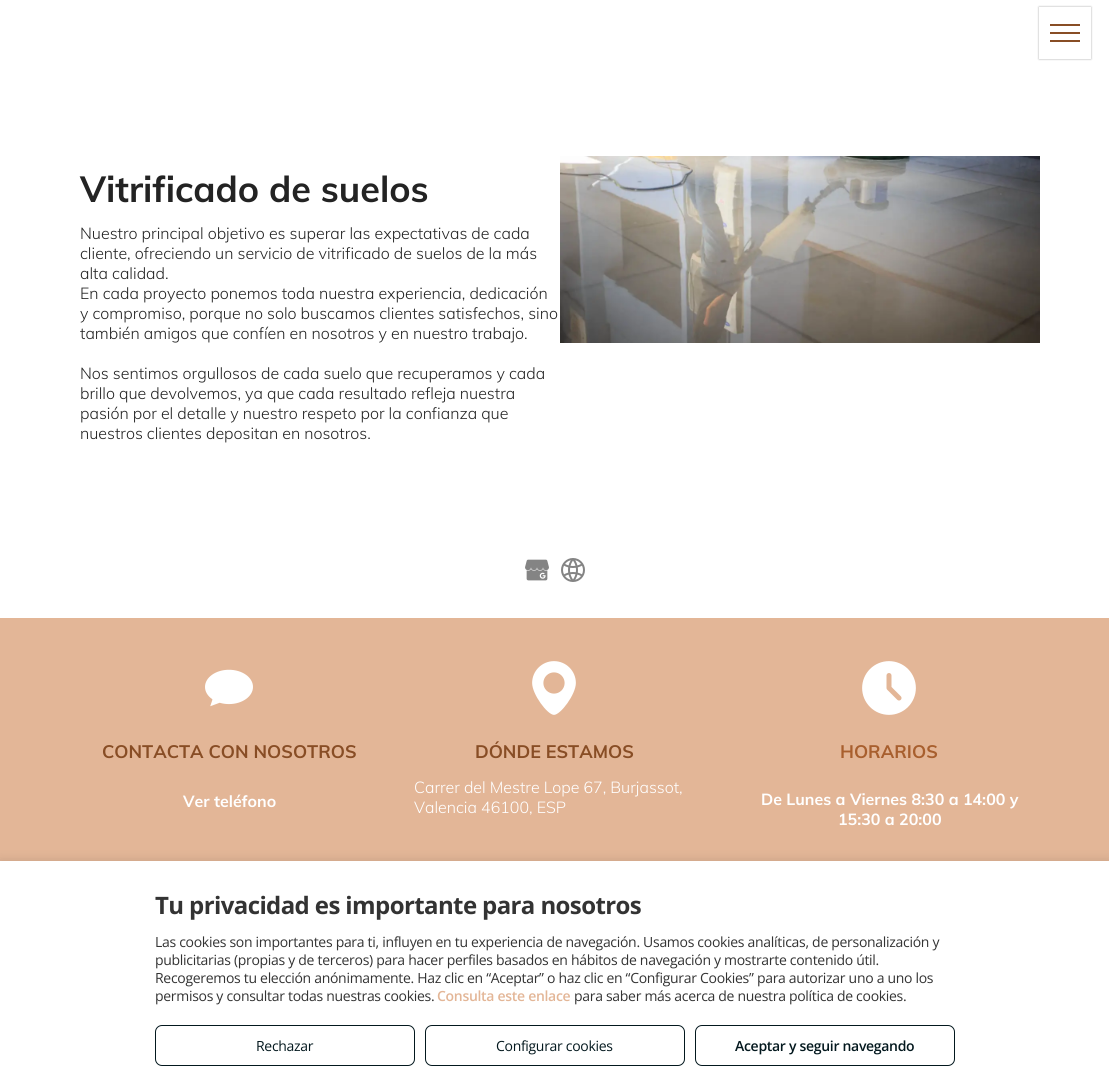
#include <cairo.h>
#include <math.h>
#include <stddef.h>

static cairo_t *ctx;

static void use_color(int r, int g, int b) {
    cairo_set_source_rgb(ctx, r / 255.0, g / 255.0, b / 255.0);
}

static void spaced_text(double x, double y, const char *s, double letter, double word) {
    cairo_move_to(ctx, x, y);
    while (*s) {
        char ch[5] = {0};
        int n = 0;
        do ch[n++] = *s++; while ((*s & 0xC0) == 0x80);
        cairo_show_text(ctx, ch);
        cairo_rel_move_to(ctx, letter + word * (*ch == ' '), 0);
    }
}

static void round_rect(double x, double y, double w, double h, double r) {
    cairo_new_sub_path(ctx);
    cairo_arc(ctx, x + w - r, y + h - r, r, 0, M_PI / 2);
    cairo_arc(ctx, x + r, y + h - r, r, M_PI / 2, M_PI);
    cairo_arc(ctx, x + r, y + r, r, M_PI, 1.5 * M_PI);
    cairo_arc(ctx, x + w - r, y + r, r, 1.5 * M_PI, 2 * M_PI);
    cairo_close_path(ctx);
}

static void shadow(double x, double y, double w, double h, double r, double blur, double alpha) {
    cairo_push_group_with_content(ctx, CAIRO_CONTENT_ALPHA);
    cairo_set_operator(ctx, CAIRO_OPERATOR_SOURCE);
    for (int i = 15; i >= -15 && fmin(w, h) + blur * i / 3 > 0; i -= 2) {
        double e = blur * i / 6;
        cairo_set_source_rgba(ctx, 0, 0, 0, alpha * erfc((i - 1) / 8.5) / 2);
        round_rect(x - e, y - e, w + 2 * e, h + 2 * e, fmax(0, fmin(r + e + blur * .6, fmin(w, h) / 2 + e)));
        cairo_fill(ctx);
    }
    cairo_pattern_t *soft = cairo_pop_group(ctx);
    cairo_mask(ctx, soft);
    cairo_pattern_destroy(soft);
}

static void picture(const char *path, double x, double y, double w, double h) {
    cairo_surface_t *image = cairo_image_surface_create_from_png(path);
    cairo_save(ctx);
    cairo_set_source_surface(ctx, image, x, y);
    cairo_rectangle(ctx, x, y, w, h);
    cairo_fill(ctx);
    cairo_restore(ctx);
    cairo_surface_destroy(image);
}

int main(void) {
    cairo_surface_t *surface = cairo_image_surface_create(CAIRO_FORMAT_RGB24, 1109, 1086);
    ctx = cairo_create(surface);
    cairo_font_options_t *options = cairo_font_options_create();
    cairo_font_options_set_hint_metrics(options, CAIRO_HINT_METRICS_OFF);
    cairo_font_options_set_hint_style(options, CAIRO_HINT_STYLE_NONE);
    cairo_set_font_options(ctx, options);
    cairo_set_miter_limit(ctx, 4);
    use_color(255, 255, 255);
    cairo_paint(ctx);
    cairo_save(ctx);
    cairo_set_fill_rule(ctx, CAIRO_FILL_RULE_EVEN_ODD);
    cairo_new_path(ctx);
    cairo_move_to(ctx, 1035, 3);
    cairo_line_to(ctx, 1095, 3);
    cairo_line_to(ctx, 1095, 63);
    cairo_line_to(ctx, 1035, 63);
    cairo_close_path(ctx);
    cairo_move_to(ctx, 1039, 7);
    cairo_line_to(ctx, 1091, 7);
    cairo_line_to(ctx, 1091, 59);
    cairo_line_to(ctx, 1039, 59);
    cairo_close_path(ctx);
    cairo_clip(ctx);
    use_color(0, 0, 0);
    shadow(1039, 7, 52, 52, 0, 1, 0.35);
    cairo_restore(ctx);
    use_color(136, 77, 37);
    cairo_rectangle(ctx, 1050, 24, 30, 2);
    cairo_fill(ctx);
    cairo_rectangle(ctx, 1050, 32, 30, 2);
    cairo_fill(ctx);
    cairo_rectangle(ctx, 1050, 40, 30, 2);
    cairo_fill(ctx);
    cairo_select_font_face(ctx, "Muli", CAIRO_FONT_SLANT_NORMAL, CAIRO_FONT_WEIGHT_BOLD);
    cairo_set_font_size(ctx, 36);
    use_color(35, 35, 35);
    cairo_move_to(ctx, 80, 202);
    cairo_show_text(ctx, "Vitrificado de suelos");
    cairo_select_font_face(ctx, "Muli Light", CAIRO_FONT_SLANT_NORMAL, CAIRO_FONT_WEIGHT_NORMAL);
    cairo_set_font_size(ctx, 16);
    cairo_move_to(ctx, 80, 239);
    cairo_show_text(ctx, "Nuestro principal objetivo es superar las expectativas de cada");
    cairo_move_to(ctx, 80, 259);
    cairo_show_text(ctx, "cliente, ofreciendo un servicio de vitrificado de suelos de la más");
    cairo_move_to(ctx, 80, 279);
    cairo_show_text(ctx, "alta calidad.");
    cairo_move_to(ctx, 80, 299);
    cairo_show_text(ctx, "En cada proyecto ponemos toda nuestra experiencia, dedicación");
    cairo_move_to(ctx, 80, 319);
    cairo_show_text(ctx, "y compromiso, porque no solo buscamos clientes satisfechos, sino");
    cairo_move_to(ctx, 80, 339);
    cairo_show_text(ctx, "también amigos que confíen en nosotros y en nuestro trabajo.");
    cairo_move_to(ctx, 80, 379);
    cairo_show_text(ctx, "Nos sentimos orgullosos de cada suelo que recuperamos y cada");
    cairo_move_to(ctx, 80, 399);
    cairo_show_text(ctx, "brillo que devolvemos, ya que cada resultado refleja nuestra");
    cairo_move_to(ctx, 80, 419);
    cairo_show_text(ctx, "pasión por el detalle y nuestro respeto por la confianza que");
    cairo_move_to(ctx, 80, 439);
    cairo_show_text(ctx, "nuestros clientes depositan en nosotros.");
    picture("img1.png", 560, 156, 480, 187);
    picture("img2.png", 525, 559, 24, 22);
    picture("img3.png", 561, 558, 24, 24);
    use_color(227, 182, 151);
    cairo_rectangle(ctx, 0, 618, 1109, 243);
    cairo_fill(ctx);
    picture("img4.png", 205, 669, 48, 38);
    cairo_select_font_face(ctx, "Muli", CAIRO_FONT_SLANT_NORMAL, CAIRO_FONT_WEIGHT_BOLD);
    cairo_set_font_size(ctx, 18);
    use_color(136, 77, 37);
    cairo_move_to(ctx, 102, 758);
    cairo_show_text(ctx, "CONTACTA CON NOSOTROS");
    cairo_set_font_size(ctx, 16);
    use_color(255, 255, 255);
    cairo_move_to(ctx, 183, 807);
    cairo_show_text(ctx, "Ver teléfono");
    picture("img5.png", 532, 661, 44, 54);
    cairo_set_font_size(ctx, 18);
    use_color(136, 77, 37);
    cairo_move_to(ctx, 475, 758);
    cairo_show_text(ctx, "DÓNDE ESTAMOS");
    cairo_select_font_face(ctx, "Muli Light", CAIRO_FONT_SLANT_NORMAL, CAIRO_FONT_WEIGHT_NORMAL);
    cairo_set_font_size(ctx, 16);
    use_color(255, 255, 255);
    cairo_move_to(ctx, 414, 793);
    cairo_show_text(ctx, "Carrer del Mestre Lope 67, Burjassot,");
    cairo_move_to(ctx, 414, 813);
    cairo_show_text(ctx, "Valencia 46100, ESP");
    picture("img6.png", 862, 661, 54, 54);
    cairo_select_font_face(ctx, "Muli", CAIRO_FONT_SLANT_NORMAL, CAIRO_FONT_WEIGHT_BOLD);
    cairo_set_font_size(ctx, 18);
    use_color(168, 95, 46);
    cairo_move_to(ctx, 840, 758);
    cairo_show_text(ctx, "HORARIOS");
    cairo_set_font_size(ctx, 16);
    use_color(255, 255, 255);
    cairo_move_to(ctx, 761, 805);
    cairo_show_text(ctx, "De Lunes a Viernes 8:30 a 14:00 y");
    cairo_move_to(ctx, 838, 825);
    cairo_show_text(ctx, "15:30 a 20:00");
    use_color(0, 0, 0);
    shadow(0, 859, 1109, 225, 0, 5, 0.1);
    use_color(255, 255, 255);
    cairo_rectangle(ctx, 0, 861, 1109, 225);
    cairo_fill(ctx);
    cairo_select_font_face(ctx, "Open Sans", CAIRO_FONT_SLANT_NORMAL, CAIRO_FONT_WEIGHT_BOLD);
    cairo_set_font_size(ctx, 24);
    use_color(51, 51, 51);
    spaced_text(155, 914, "Tu privacidad es importante para nosotros", -0.6, 0);
    cairo_select_font_face(ctx, "Open Sans", CAIRO_FONT_SLANT_NORMAL, CAIRO_FONT_WEIGHT_NORMAL);
    cairo_set_font_size(ctx, 14);
    spaced_text(155, 947, "Las cookies son importantes para ti, influyen en tu experiencia de navegación. Usamos cookies analíticas, de personalización y", -0.3, 0);
    spaced_text(155, 965, "publicitarias (propias y de terceros) para hacer perfiles basados en hábitos de navegación y mostrarte contenido útil.", -0.3, 0);
    spaced_text(155, 983, "Recogeremos tu elección anónimamente. Haz clic en “Aceptar” o haz clic en “Configurar Cookies” para autorizar uno a uno los", -0.3, 0);
    spaced_text(155, 1001, "permisos y consultar todas nuestras cookies.", -0.3, 0);
    cairo_select_font_face(ctx, "Open Sans SemiBold", CAIRO_FONT_SLANT_NORMAL, CAIRO_FONT_WEIGHT_NORMAL);
    use_color(227, 182, 151);
    spaced_text(437, 1001, "Consulta este enlace", -0.3, 0);
    cairo_select_font_face(ctx, "Open Sans", CAIRO_FONT_SLANT_NORMAL, CAIRO_FONT_WEIGHT_NORMAL);
    use_color(51, 51, 51);
    spaced_text(574, 1001, "para saber más acerca de nuestra política de cookies.", -0.3, 0);
    round_rect(155.5, 1025.5, 259, 40, 6.5);
    use_color(3, 24, 30);
    cairo_set_line_width(ctx, 1);
    cairo_stroke(ctx);
    spaced_text(256, 1051, "Rechazar", -0.3, 0);
    round_rect(425.5, 1025.5, 259, 40, 6.5);
    cairo_stroke(ctx);
    spaced_text(496, 1051, "Configurar cookies", -0.3, 0);
    round_rect(695.5, 1025.5, 259, 40, 6.5);
    cairo_stroke(ctx);
    cairo_select_font_face(ctx, "Open Sans SemiBold", CAIRO_FONT_SLANT_NORMAL, CAIRO_FONT_WEIGHT_NORMAL);
    spaced_text(735, 1051, "Aceptar y seguir navegando", -0.3, 0);
    cairo_surface_write_to_png(surface, "result.png");
    cairo_font_options_destroy(options);
    cairo_destroy(ctx);
    cairo_surface_destroy(surface);
    return 0;
}
